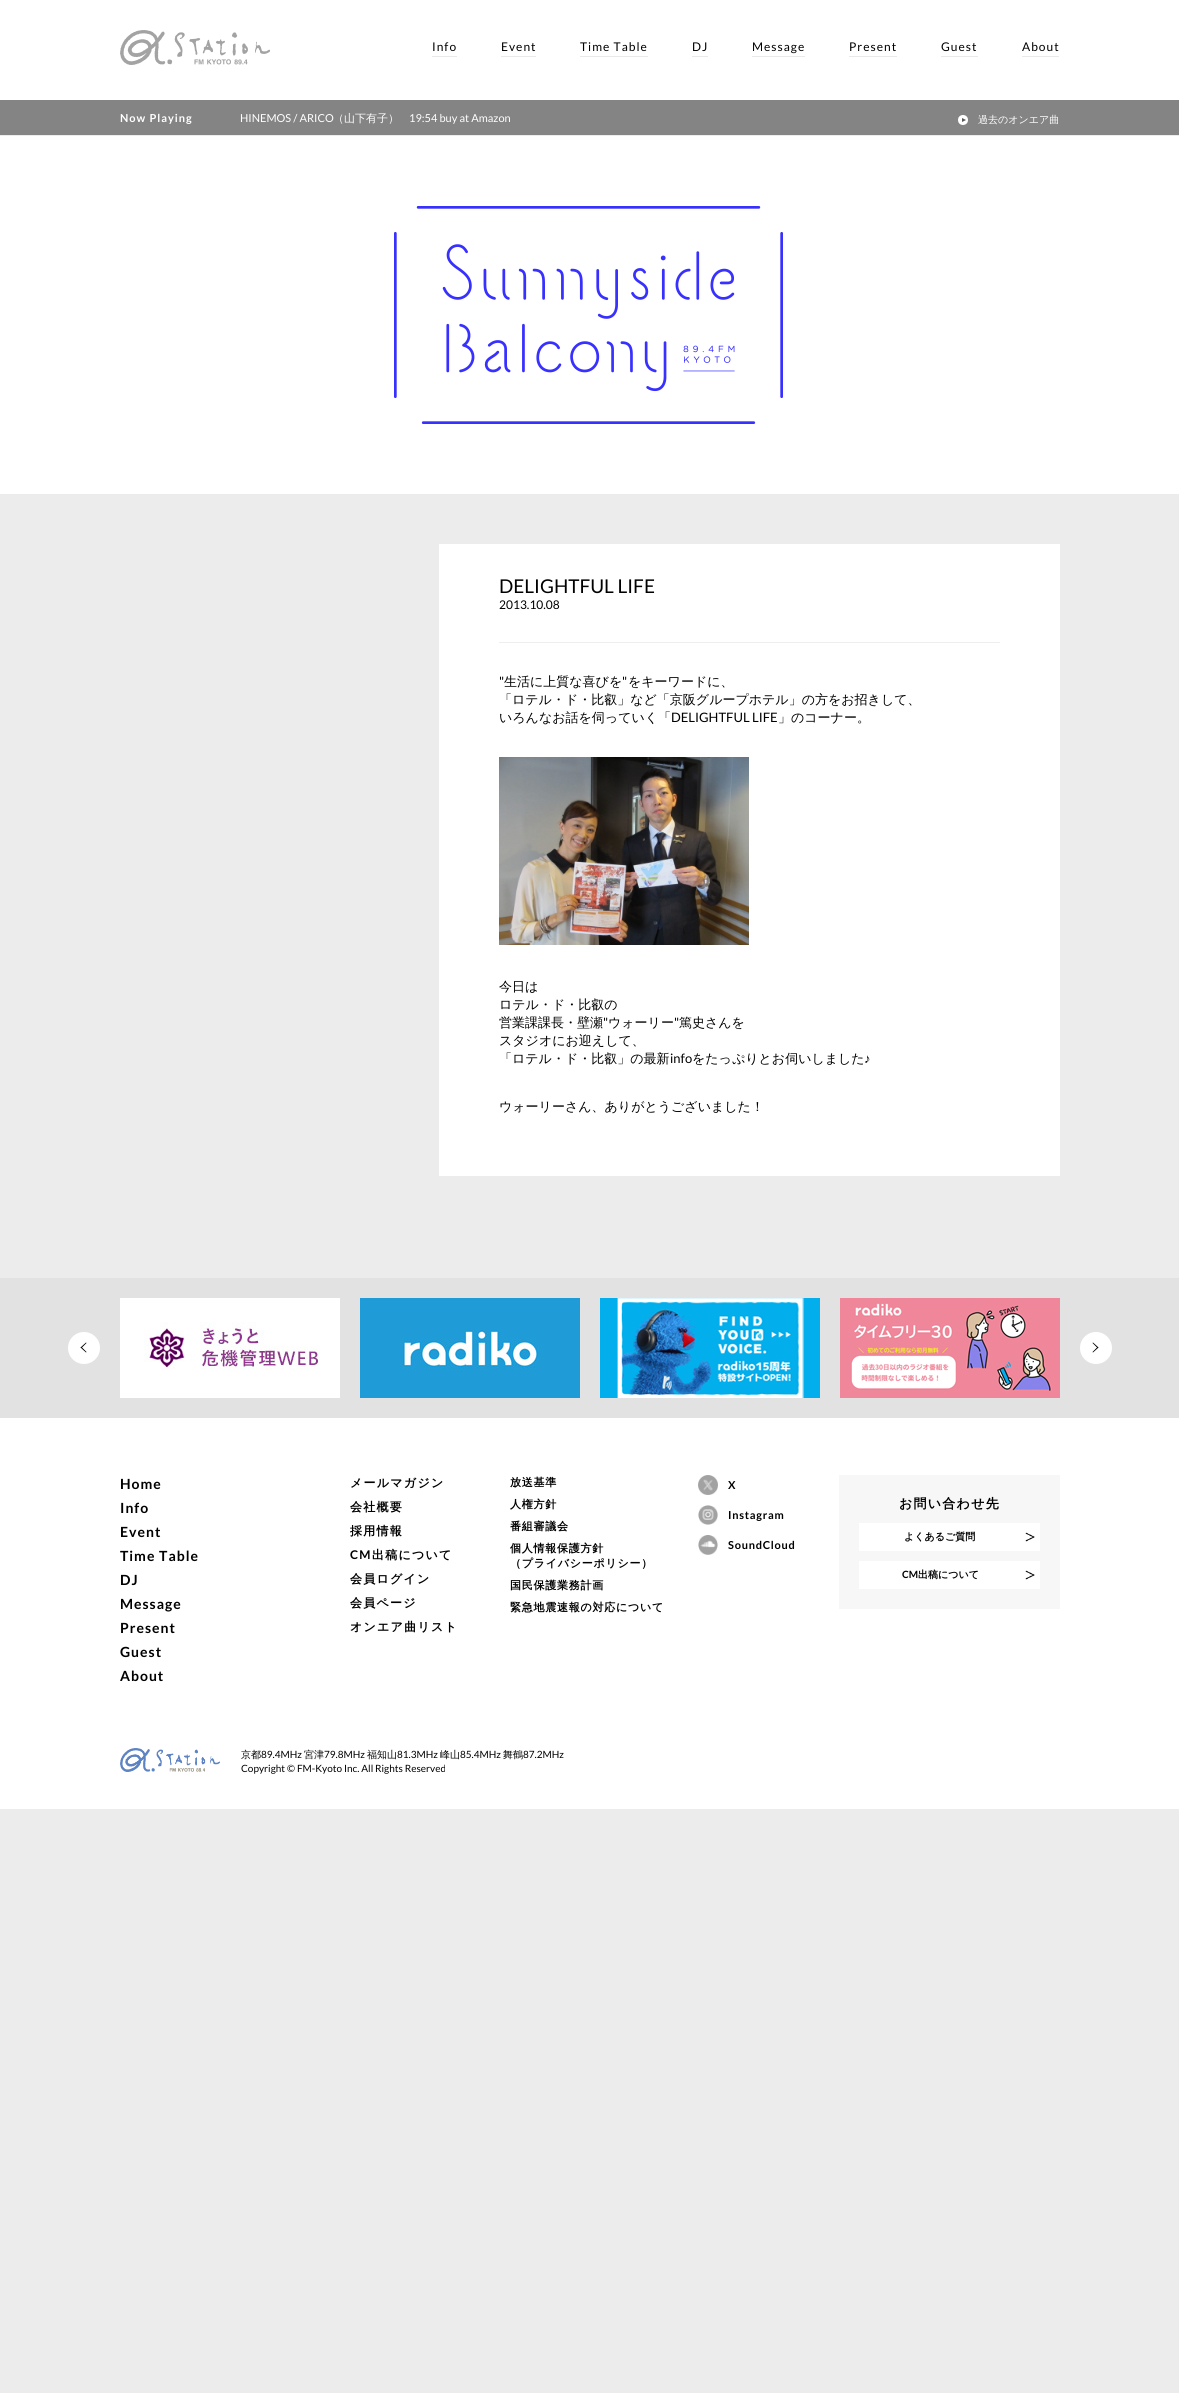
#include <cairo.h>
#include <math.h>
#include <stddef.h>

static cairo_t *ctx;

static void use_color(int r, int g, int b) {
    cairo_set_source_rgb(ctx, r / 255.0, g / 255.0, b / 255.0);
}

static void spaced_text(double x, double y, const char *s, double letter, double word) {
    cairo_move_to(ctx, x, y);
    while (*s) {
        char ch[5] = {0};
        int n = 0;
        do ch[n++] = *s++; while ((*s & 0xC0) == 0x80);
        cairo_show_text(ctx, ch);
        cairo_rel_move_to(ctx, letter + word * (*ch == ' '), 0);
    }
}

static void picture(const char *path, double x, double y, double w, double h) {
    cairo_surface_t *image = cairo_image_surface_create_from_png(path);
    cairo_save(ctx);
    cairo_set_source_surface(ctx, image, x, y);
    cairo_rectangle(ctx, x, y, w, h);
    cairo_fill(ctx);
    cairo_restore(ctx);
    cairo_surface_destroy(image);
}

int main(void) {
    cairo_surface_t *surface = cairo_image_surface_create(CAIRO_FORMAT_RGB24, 1179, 2393);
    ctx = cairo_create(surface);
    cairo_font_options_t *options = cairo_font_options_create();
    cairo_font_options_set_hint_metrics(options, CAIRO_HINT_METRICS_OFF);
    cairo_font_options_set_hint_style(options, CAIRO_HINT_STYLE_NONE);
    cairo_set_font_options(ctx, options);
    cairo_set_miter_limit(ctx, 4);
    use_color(236, 236, 236);
    cairo_paint(ctx);
    use_color(255, 255, 255);
    cairo_rectangle(ctx, 0, 0, 1179, 100);
    cairo_fill(ctx);
    picture("img1.png", 120, 30, 150, 35);
    cairo_select_font_face(ctx, "Lato", CAIRO_FONT_SLANT_NORMAL, CAIRO_FONT_WEIGHT_NORMAL);
    cairo_set_font_size(ctx, 12);
    use_color(0, 0, 0);
    spaced_text(432, 51, "Info", 1, 0);
    use_color(233, 233, 233);
    cairo_rectangle(ctx, 432, 56, 25, 1);
    cairo_fill(ctx);
    use_color(0, 0, 0);
    spaced_text(501, 51, "Event", 1, 0);
    use_color(233, 233, 233);
    cairo_rectangle(ctx, 501, 56, 35, 1);
    cairo_fill(ctx);
    use_color(0, 0, 0);
    spaced_text(580, 51, "Time Table", 1, 0);
    use_color(233, 233, 233);
    cairo_rectangle(ctx, 580, 56, 68, 1);
    cairo_fill(ctx);
    use_color(0, 0, 0);
    spaced_text(692, 51, "DJ", 1, 0);
    use_color(233, 233, 233);
    cairo_rectangle(ctx, 692, 56, 16, 1);
    cairo_fill(ctx);
    use_color(0, 0, 0);
    spaced_text(752, 51, "Message", 1, 0);
    use_color(233, 233, 233);
    cairo_rectangle(ctx, 752, 56, 53, 1);
    cairo_fill(ctx);
    use_color(0, 0, 0);
    spaced_text(849, 51, "Present", 1, 0);
    use_color(233, 233, 233);
    cairo_rectangle(ctx, 849, 56, 48, 1);
    cairo_fill(ctx);
    use_color(0, 0, 0);
    spaced_text(941, 51, "Guest", 1, 0);
    use_color(233, 233, 233);
    cairo_rectangle(ctx, 941, 56, 37, 1);
    cairo_fill(ctx);
    use_color(0, 0, 0);
    spaced_text(1022, 51, "About", 1, 0);
    use_color(233, 233, 233);
    cairo_rectangle(ctx, 1022, 56, 37, 1);
    cairo_fill(ctx);
    use_color(132, 132, 132);
    cairo_rectangle(ctx, 0, 100, 1179, 35);
    cairo_fill(ctx);
    cairo_select_font_face(ctx, "Lato", CAIRO_FONT_SLANT_NORMAL, CAIRO_FONT_WEIGHT_BOLD);
    cairo_set_font_size(ctx, 11);
    use_color(255, 255, 255);
    spaced_text(120, 122, "Now Playing", 1, 0);
    cairo_select_font_face(ctx, "Lato", CAIRO_FONT_SLANT_NORMAL, CAIRO_FONT_WEIGHT_NORMAL);
    cairo_move_to(ctx, 240, 122);
    cairo_show_text(ctx, "HINEMOS / ARICO");
    cairo_select_font_face(ctx, "WenQuanYi Zen Hei Medium", CAIRO_FONT_SLANT_NORMAL, CAIRO_FONT_WEIGHT_NORMAL);
    cairo_move_to(ctx, 333, 122);
    cairo_show_text(ctx, "（山下有子）");
    cairo_select_font_face(ctx, "Lato", CAIRO_FONT_SLANT_NORMAL, CAIRO_FONT_WEIGHT_NORMAL);
    cairo_move_to(ctx, 409, 122);
    cairo_show_text(ctx, "19:54 buy at Amazon");
    cairo_new_path(ctx);
    cairo_arc(ctx, 963, 120, 5, 0, 2 * M_PI);
    cairo_fill(ctx);
    cairo_select_font_face(ctx, "WenQuanYi Zen Hei Medium", CAIRO_FONT_SLANT_NORMAL, CAIRO_FONT_WEIGHT_NORMAL);
    cairo_set_font_size(ctx, 10);
    cairo_move_to(ctx, 978, 123);
    cairo_show_text(ctx, "過去のオンエア曲");
    use_color(88, 88, 88);
    cairo_new_path(ctx);
    cairo_move_to(ctx, 962, 122);
    cairo_line_to(ctx, 962, 118);
    cairo_line_to(ctx, 966, 120);
    cairo_close_path(ctx);
    cairo_fill(ctx);
    use_color(255, 255, 255);
    cairo_rectangle(ctx, 0, 136, 1179, 358);
    cairo_fill(ctx);
    picture("img2.png", 394, 206, 389, 218);
    cairo_rectangle(ctx, 439, 544, 621, 632);
    cairo_fill(ctx);
    cairo_select_font_face(ctx, "Lato", CAIRO_FONT_SLANT_NORMAL, CAIRO_FONT_WEIGHT_NORMAL);
    cairo_set_font_size(ctx, 19);
    use_color(0, 0, 0);
    cairo_move_to(ctx, 499, 593);
    cairo_show_text(ctx, "DELIGHTFUL LIFE");
    use_color(238, 238, 238);
    cairo_rectangle(ctx, 499, 642, 501, 1);
    cairo_fill(ctx);
    cairo_set_font_size(ctx, 12);
    use_color(0, 0, 0);
    cairo_move_to(ctx, 499, 609);
    cairo_show_text(ctx, "2013.10.08");
    cairo_set_font_size(ctx, 13);
    cairo_move_to(ctx, 499, 686);
    cairo_show_text(ctx, "\"");
    cairo_select_font_face(ctx, "WenQuanYi Zen Hei Medium", CAIRO_FONT_SLANT_NORMAL, CAIRO_FONT_WEIGHT_NORMAL);
    cairo_move_to(ctx, 504, 686);
    cairo_show_text(ctx, "生活に上質な喜びを");
    cairo_select_font_face(ctx, "Lato", CAIRO_FONT_SLANT_NORMAL, CAIRO_FONT_WEIGHT_NORMAL);
    cairo_move_to(ctx, 622, 686);
    cairo_show_text(ctx, "\"");
    cairo_select_font_face(ctx, "WenQuanYi Zen Hei Medium", CAIRO_FONT_SLANT_NORMAL, CAIRO_FONT_WEIGHT_NORMAL);
    cairo_move_to(ctx, 628, 686);
    cairo_show_text(ctx, "をキーワードに、");
    cairo_move_to(ctx, 499, 704);
    cairo_show_text(ctx, "「ロテル・ド・比叡」など「京阪グループホテル」の方をお招きして、");
    cairo_move_to(ctx, 499, 722);
    cairo_show_text(ctx, "いろんなお話を伺っていく「");
    cairo_select_font_face(ctx, "Lato", CAIRO_FONT_SLANT_NORMAL, CAIRO_FONT_WEIGHT_NORMAL);
    cairo_move_to(ctx, 671, 722);
    cairo_show_text(ctx, "DELIGHTFUL LIFE");
    cairo_select_font_face(ctx, "WenQuanYi Zen Hei Medium", CAIRO_FONT_SLANT_NORMAL, CAIRO_FONT_WEIGHT_NORMAL);
    cairo_move_to(ctx, 778, 722);
    cairo_show_text(ctx, "」のコーナー。");
    picture("img3.png", 499, 757, 250, 188);
    cairo_move_to(ctx, 499, 991);
    cairo_show_text(ctx, "今日は");
    cairo_move_to(ctx, 499, 1009);
    cairo_show_text(ctx, "ロテル・ド・比叡の");
    cairo_move_to(ctx, 499, 1027);
    cairo_show_text(ctx, "営業課課長・壁瀬");
    cairo_select_font_face(ctx, "Lato", CAIRO_FONT_SLANT_NORMAL, CAIRO_FONT_WEIGHT_NORMAL);
    cairo_move_to(ctx, 603, 1027);
    cairo_show_text(ctx, "\"");
    cairo_select_font_face(ctx, "WenQuanYi Zen Hei Medium", CAIRO_FONT_SLANT_NORMAL, CAIRO_FONT_WEIGHT_NORMAL);
    cairo_move_to(ctx, 608, 1027);
    cairo_show_text(ctx, "ウォーリー");
    cairo_select_font_face(ctx, "Lato", CAIRO_FONT_SLANT_NORMAL, CAIRO_FONT_WEIGHT_NORMAL);
    cairo_move_to(ctx, 674, 1027);
    cairo_show_text(ctx, "\"");
    cairo_select_font_face(ctx, "WenQuanYi Zen Hei Medium", CAIRO_FONT_SLANT_NORMAL, CAIRO_FONT_WEIGHT_NORMAL);
    cairo_move_to(ctx, 679, 1027);
    cairo_show_text(ctx, "篤史さんを");
    cairo_move_to(ctx, 499, 1045);
    cairo_show_text(ctx, "スタジオにお迎えして、");
    cairo_move_to(ctx, 499, 1063);
    cairo_show_text(ctx, "「ロテル・ド・比叡」の最新");
    cairo_select_font_face(ctx, "Lato", CAIRO_FONT_SLANT_NORMAL, CAIRO_FONT_WEIGHT_NORMAL);
    cairo_move_to(ctx, 670, 1063);
    cairo_show_text(ctx, "info");
    cairo_select_font_face(ctx, "WenQuanYi Zen Hei Medium", CAIRO_FONT_SLANT_NORMAL, CAIRO_FONT_WEIGHT_NORMAL);
    cairo_move_to(ctx, 692, 1063);
    cairo_show_text(ctx, "をたっぷりとお伺いしました");
    cairo_select_font_face(ctx, "Liberation Serif", CAIRO_FONT_SLANT_NORMAL, CAIRO_FONT_WEIGHT_NORMAL);
    cairo_move_to(ctx, 864, 1063);
    cairo_show_text(ctx, "♪");
    cairo_select_font_face(ctx, "WenQuanYi Zen Hei Medium", CAIRO_FONT_SLANT_NORMAL, CAIRO_FONT_WEIGHT_NORMAL);
    cairo_move_to(ctx, 499, 1111);
    cairo_show_text(ctx, "ウォーリーさん、ありがとうございました！");
    use_color(255, 255, 255);
    cairo_rectangle(ctx, 0, 1418, 1179, 391);
    cairo_fill(ctx);
    use_color(226, 226, 226);
    cairo_rectangle(ctx, 0, 1278, 1179, 140);
    cairo_fill(ctx);
    use_color(255, 255, 255);
    cairo_arc(ctx, 84, 1348, 16, 0, 2 * M_PI);
    cairo_fill(ctx);
    use_color(0, 0, 0);
    cairo_new_path(ctx);
    cairo_move_to(ctx, 86, 1352.5);
    cairo_line_to(ctx, 80.5, 1347.5);
    cairo_line_to(ctx, 81.5, 1347);
    cairo_line_to(ctx, 86.5, 1352);
    cairo_close_path(ctx);
    cairo_fill(ctx);
    cairo_new_path(ctx);
    cairo_move_to(ctx, 81.5, 1348);
    cairo_line_to(ctx, 80.5, 1347.5);
    cairo_line_to(ctx, 86, 1342.5);
    cairo_line_to(ctx, 86.5, 1343);
    cairo_close_path(ctx);
    cairo_fill(ctx);
    picture("img4.png", 120, 1298, 220, 100);
    picture("img5.png", 360, 1298, 220, 100);
    picture("img6.png", 600, 1298, 220, 100);
    picture("img7.png", 840, 1298, 220, 100);
    use_color(255, 255, 255);
    cairo_arc(ctx, 1096, 1348, 16, 0, 2 * M_PI);
    cairo_fill(ctx);
    use_color(0, 0, 0);
    cairo_new_path(ctx);
    cairo_move_to(ctx, 1093, 1342.5);
    cairo_line_to(ctx, 1098.5, 1347.5);
    cairo_line_to(ctx, 1097.5, 1348);
    cairo_line_to(ctx, 1092.5, 1343);
    cairo_close_path(ctx);
    cairo_fill(ctx);
    cairo_new_path(ctx);
    cairo_move_to(ctx, 1097.5, 1347);
    cairo_line_to(ctx, 1098.5, 1347.5);
    cairo_line_to(ctx, 1093, 1352.5);
    cairo_line_to(ctx, 1092.5, 1352);
    cairo_close_path(ctx);
    cairo_fill(ctx);
    cairo_select_font_face(ctx, "Lato", CAIRO_FONT_SLANT_NORMAL, CAIRO_FONT_WEIGHT_BOLD);
    cairo_set_font_size(ctx, 14);
    spaced_text(120, 1489, "Home", 1, 0);
    spaced_text(120, 1513, "Info", 1, 0);
    spaced_text(120, 1537, "Event", 1, 0);
    spaced_text(120, 1561, "Time Table", 1, 0);
    spaced_text(120, 1585, "DJ", 1, 0);
    spaced_text(120, 1609, "Message", 1, 0);
    spaced_text(120, 1633, "Present", 1, 0);
    spaced_text(120, 1657, "Guest", 1, 0);
    spaced_text(120, 1681, "About", 1, 0);
    cairo_select_font_face(ctx, "WenQuanYi Zen Hei", CAIRO_FONT_SLANT_NORMAL, CAIRO_FONT_WEIGHT_BOLD);
    cairo_set_font_size(ctx, 12);
    spaced_text(350, 1487, "メールマガジン", 1.25, 0);
    spaced_text(350, 1511, "会社概要", 1.25, 0);
    spaced_text(350, 1535, "採用情報", 1.25, 0);
    cairo_select_font_face(ctx, "Lato", CAIRO_FONT_SLANT_NORMAL, CAIRO_FONT_WEIGHT_BOLD);
    spaced_text(350, 1559, "CM", 1.25, 0);
    cairo_select_font_face(ctx, "WenQuanYi Zen Hei", CAIRO_FONT_SLANT_NORMAL, CAIRO_FONT_WEIGHT_BOLD);
    spaced_text(372, 1559, "出稿について", 1.25, 0);
    spaced_text(350, 1583, "会員ログイン", 1.25, 0);
    spaced_text(350, 1607, "会員ページ", 1.25, 0);
    spaced_text(350, 1631, "オンエア曲リスト", 1.25, 0);
    cairo_set_font_size(ctx, 11);
    spaced_text(510, 1486, "放送基準", 0.75, 0);
    spaced_text(510, 1508, "人権方針", 0.75, 0);
    spaced_text(510, 1530, "番組審議会", 0.75, 0);
    spaced_text(510, 1552, "個人情報保護方針", 0.75, 0);
    spaced_text(510, 1567, "（プライバシーポリシー）", 0.75, 0);
    spaced_text(510, 1589, "国民保護業務計画", 0.75, 0);
    spaced_text(510, 1611, "緊急地震速報の対応について", 0.75, 0);
    picture("img8.png", 698, 1475, 20, 20);
    cairo_select_font_face(ctx, "Lato", CAIRO_FONT_SLANT_NORMAL, CAIRO_FONT_WEIGHT_BOLD);
    spaced_text(728, 1489, "X", 0.75, 0);
    picture("img9.png", 698, 1505, 20, 20);
    spaced_text(728, 1519, "Instagram", 0.75, 0);
    picture("img10.png", 698, 1535, 20, 20);
    spaced_text(728, 1549, "SoundCloud", 0.75, 0);
    use_color(247, 247, 247);
    cairo_rectangle(ctx, 839, 1475, 221, 134);
    cairo_fill(ctx);
    cairo_select_font_face(ctx, "WenQuanYi Zen Hei", CAIRO_FONT_SLANT_NORMAL, CAIRO_FONT_WEIGHT_BOLD);
    cairo_set_font_size(ctx, 13);
    use_color(0, 0, 0);
    spaced_text(899, 1508, "お問い合わせ先", 1.25, 0);
    use_color(255, 255, 255);
    cairo_rectangle(ctx, 859, 1523, 181, 28);
    cairo_fill(ctx);
    cairo_set_font_size(ctx, 10);
    use_color(0, 0, 0);
    cairo_move_to(ctx, 904, 1540);
    cairo_show_text(ctx, "よくあるご質問");
    picture("img11.png", 1025, 1532, 10, 10);
    use_color(255, 255, 255);
    cairo_rectangle(ctx, 859, 1561, 181, 28);
    cairo_fill(ctx);
    cairo_select_font_face(ctx, "Lato", CAIRO_FONT_SLANT_NORMAL, CAIRO_FONT_WEIGHT_BOLD);
    use_color(0, 0, 0);
    cairo_move_to(ctx, 902, 1578);
    cairo_show_text(ctx, "CM");
    cairo_select_font_face(ctx, "WenQuanYi Zen Hei", CAIRO_FONT_SLANT_NORMAL, CAIRO_FONT_WEIGHT_BOLD);
    cairo_move_to(ctx, 918, 1578);
    cairo_show_text(ctx, "出稿について");
    picture("img11.png", 1025, 1570, 10, 10);
    picture("img12.png", 120, 1748, 100, 24);
    cairo_select_font_face(ctx, "WenQuanYi Zen Hei Medium", CAIRO_FONT_SLANT_NORMAL, CAIRO_FONT_WEIGHT_NORMAL);
    cairo_move_to(ctx, 241, 1758);
    cairo_show_text(ctx, "京都");
    cairo_select_font_face(ctx, "Lato", CAIRO_FONT_SLANT_NORMAL, CAIRO_FONT_WEIGHT_NORMAL);
    cairo_move_to(ctx, 261, 1758);
    cairo_show_text(ctx, "89.4MHz");
    cairo_select_font_face(ctx, "WenQuanYi Zen Hei Medium", CAIRO_FONT_SLANT_NORMAL, CAIRO_FONT_WEIGHT_NORMAL);
    cairo_move_to(ctx, 304, 1758);
    cairo_show_text(ctx, "宮津");
    cairo_select_font_face(ctx, "Lato", CAIRO_FONT_SLANT_NORMAL, CAIRO_FONT_WEIGHT_NORMAL);
    cairo_move_to(ctx, 324, 1758);
    cairo_show_text(ctx, "79.8MHz");
    cairo_select_font_face(ctx, "WenQuanYi Zen Hei Medium", CAIRO_FONT_SLANT_NORMAL, CAIRO_FONT_WEIGHT_NORMAL);
    cairo_move_to(ctx, 367, 1758);
    cairo_show_text(ctx, "福知山");
    cairo_select_font_face(ctx, "Lato", CAIRO_FONT_SLANT_NORMAL, CAIRO_FONT_WEIGHT_NORMAL);
    cairo_move_to(ctx, 397, 1758);
    cairo_show_text(ctx, "81.3MHz");
    cairo_select_font_face(ctx, "WenQuanYi Zen Hei Medium", CAIRO_FONT_SLANT_NORMAL, CAIRO_FONT_WEIGHT_NORMAL);
    cairo_move_to(ctx, 440, 1758);
    cairo_show_text(ctx, "峰山");
    cairo_select_font_face(ctx, "Lato", CAIRO_FONT_SLANT_NORMAL, CAIRO_FONT_WEIGHT_NORMAL);
    cairo_move_to(ctx, 460, 1758);
    cairo_show_text(ctx, "85.4MHz");
    cairo_select_font_face(ctx, "WenQuanYi Zen Hei Medium", CAIRO_FONT_SLANT_NORMAL, CAIRO_FONT_WEIGHT_NORMAL);
    cairo_move_to(ctx, 503, 1758);
    cairo_show_text(ctx, "舞鶴");
    cairo_select_font_face(ctx, "Lato", CAIRO_FONT_SLANT_NORMAL, CAIRO_FONT_WEIGHT_NORMAL);
    cairo_move_to(ctx, 523, 1758);
    cairo_show_text(ctx, "87.2MHz");
    cairo_move_to(ctx, 241, 1772);
    cairo_show_text(ctx, "Copyright © FM-Kyoto Inc. All Rights Reserved");
    cairo_surface_write_to_png(surface, "result.png");
    cairo_font_options_destroy(options);
    cairo_destroy(ctx);
    cairo_surface_destroy(surface);
    return 0;
}
